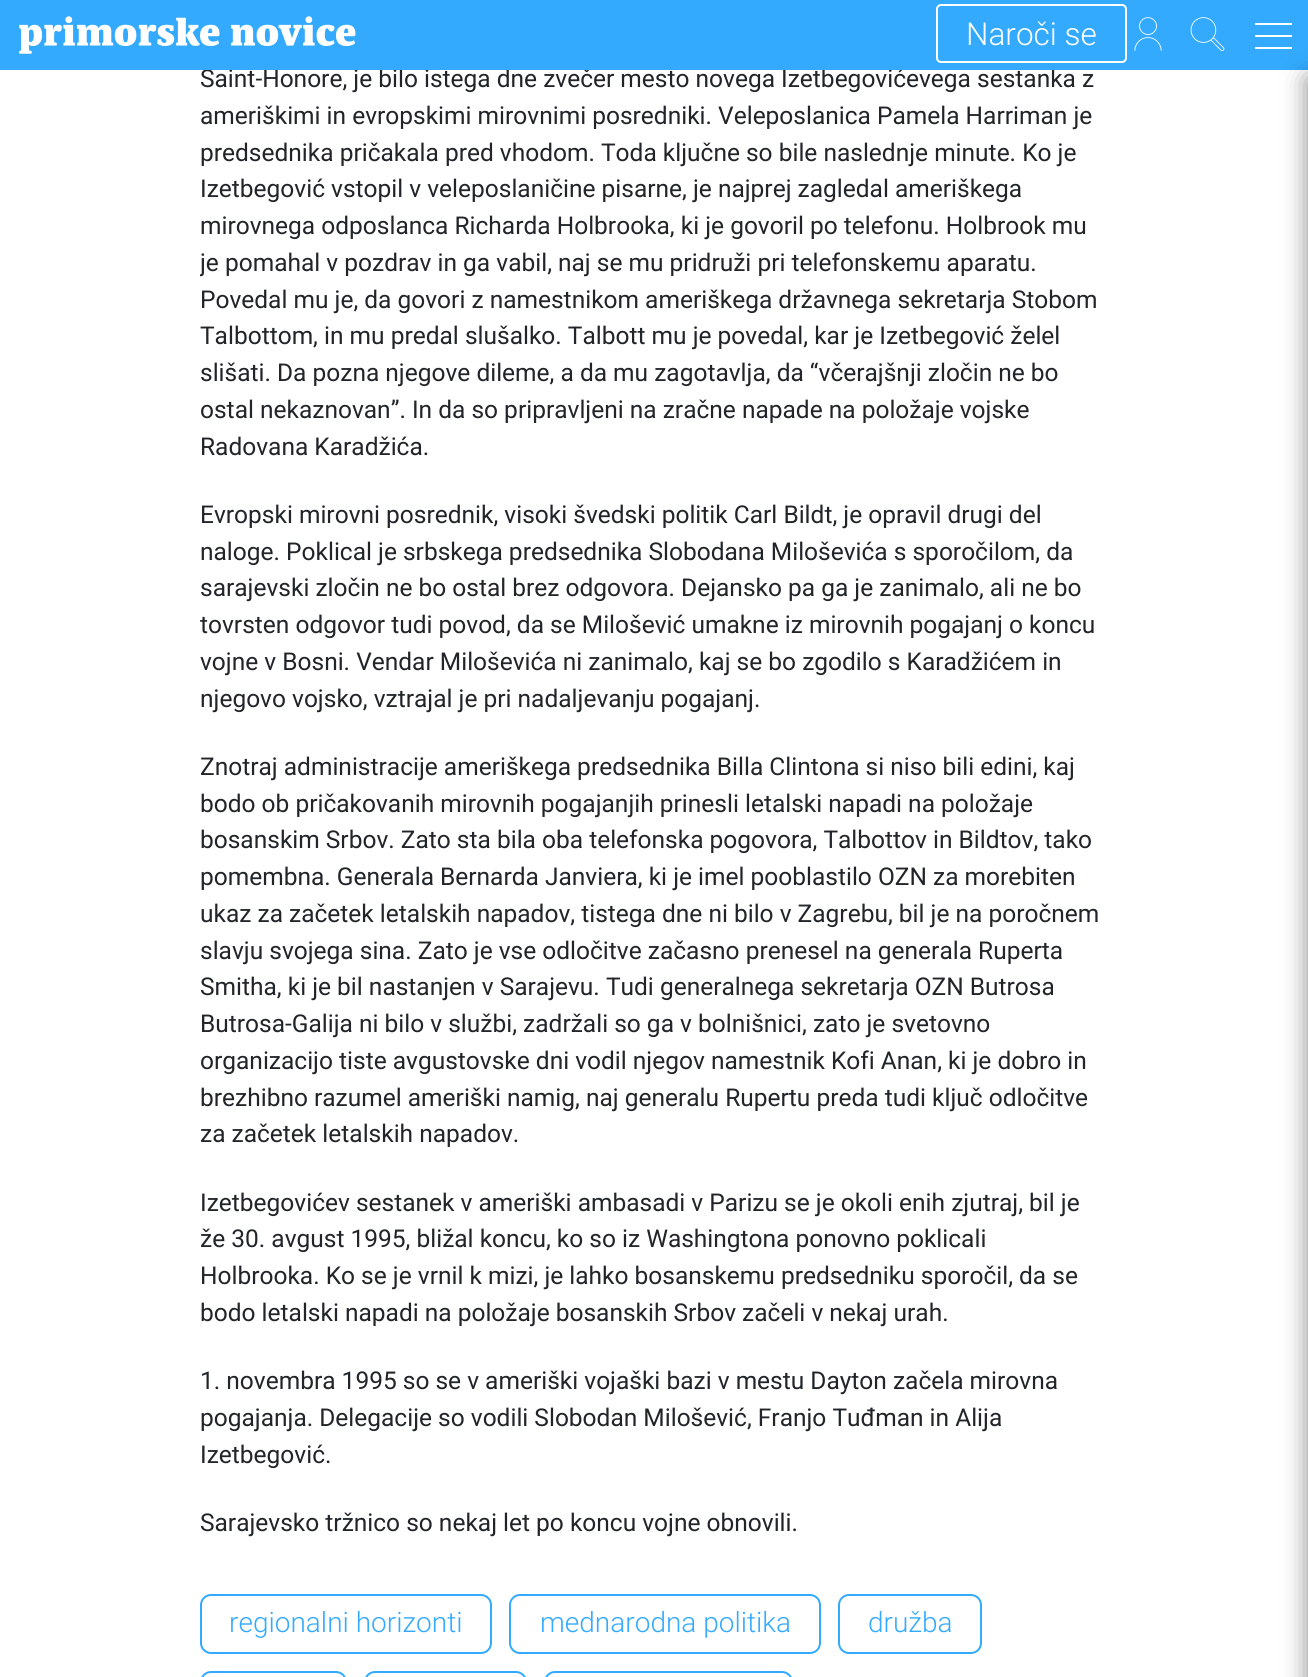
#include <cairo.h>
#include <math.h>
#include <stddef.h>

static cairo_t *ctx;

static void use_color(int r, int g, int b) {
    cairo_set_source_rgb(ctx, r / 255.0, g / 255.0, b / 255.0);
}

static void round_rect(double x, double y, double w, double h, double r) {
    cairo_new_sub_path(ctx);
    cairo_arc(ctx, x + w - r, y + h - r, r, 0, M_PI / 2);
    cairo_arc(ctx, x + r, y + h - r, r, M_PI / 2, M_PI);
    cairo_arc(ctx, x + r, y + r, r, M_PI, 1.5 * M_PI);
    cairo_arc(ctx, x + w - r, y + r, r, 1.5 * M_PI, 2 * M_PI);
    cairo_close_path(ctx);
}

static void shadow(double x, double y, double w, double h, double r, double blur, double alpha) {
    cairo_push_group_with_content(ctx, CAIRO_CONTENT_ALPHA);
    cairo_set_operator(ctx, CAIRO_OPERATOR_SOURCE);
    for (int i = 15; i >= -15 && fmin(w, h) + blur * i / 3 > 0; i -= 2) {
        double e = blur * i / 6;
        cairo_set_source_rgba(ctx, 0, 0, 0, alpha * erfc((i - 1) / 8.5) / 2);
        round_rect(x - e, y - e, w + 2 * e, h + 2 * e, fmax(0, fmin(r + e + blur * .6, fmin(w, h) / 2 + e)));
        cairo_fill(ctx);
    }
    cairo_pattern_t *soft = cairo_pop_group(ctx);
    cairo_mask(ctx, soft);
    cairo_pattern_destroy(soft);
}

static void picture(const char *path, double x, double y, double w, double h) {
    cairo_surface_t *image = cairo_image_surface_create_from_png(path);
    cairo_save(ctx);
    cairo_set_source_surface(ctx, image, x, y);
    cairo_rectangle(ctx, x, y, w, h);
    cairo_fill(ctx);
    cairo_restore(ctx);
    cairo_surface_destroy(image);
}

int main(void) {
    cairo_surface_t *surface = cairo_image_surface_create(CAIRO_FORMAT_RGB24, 1308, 1677);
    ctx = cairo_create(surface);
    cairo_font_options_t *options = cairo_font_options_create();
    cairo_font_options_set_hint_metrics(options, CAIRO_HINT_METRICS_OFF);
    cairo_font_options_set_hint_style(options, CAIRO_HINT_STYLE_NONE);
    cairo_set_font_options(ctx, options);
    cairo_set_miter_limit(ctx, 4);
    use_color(255, 255, 255);
    cairo_paint(ctx);
    cairo_select_font_face(ctx, "Roboto", CAIRO_FONT_SLANT_NORMAL, CAIRO_FONT_WEIGHT_NORMAL);
    cairo_set_font_size(ctx, 24.5);
    use_color(33, 37, 41);
    cairo_move_to(ctx, 200, 87);
    cairo_show_text(ctx, "Saint-Honore, je bilo istega dne zvečer mesto novega Izetbegovićevega sestanka z");
    use_color(51, 170, 253);
    cairo_rectangle(ctx, 0, 0, 1308, 70);
    cairo_fill(ctx);
    picture("img1.png", 19, 16, 337, 38);
    round_rect(937, 5, 189, 57, 4);
    use_color(255, 255, 255);
    cairo_stroke(ctx);
    cairo_select_font_face(ctx, "Roboto Light", CAIRO_FONT_SLANT_NORMAL, CAIRO_FONT_WEIGHT_NORMAL);
    cairo_set_font_size(ctx, 31.5);
    cairo_move_to(ctx, 966, 45);
    cairo_show_text(ctx, "Naroči se");
    picture("img2.png", 1134, 17, 28, 34);
    picture("img3.png", 1190, 17, 35, 34);
    cairo_rectangle(ctx, 1255, 35, 37, 2);
    cairo_fill(ctx);
    cairo_rectangle(ctx, 1255, 23, 37, 2);
    cairo_fill(ctx);
    cairo_rectangle(ctx, 1255, 47, 37, 2);
    cairo_fill(ctx);
    use_color(0, 0, 0);
    shadow(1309, 79, 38, 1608, 0, 13, 0.5);
    cairo_select_font_face(ctx, "Roboto", CAIRO_FONT_SLANT_NORMAL, CAIRO_FONT_WEIGHT_NORMAL);
    cairo_set_font_size(ctx, 24.5);
    use_color(33, 37, 41);
    cairo_move_to(ctx, 200, 124);
    cairo_show_text(ctx, "ameriškimi in evropskimi mirovnimi posredniki. Veleposlanica Pamela Harriman je");
    cairo_move_to(ctx, 200, 161);
    cairo_show_text(ctx, "predsednika pričakala pred vhodom. Toda ključne so bile naslednje minute. Ko je");
    cairo_move_to(ctx, 200, 197);
    cairo_show_text(ctx, "Izetbegović vstopil v veleposlaničine pisarne, je najprej zagledal ameriškega");
    cairo_move_to(ctx, 200, 234);
    cairo_show_text(ctx, "mirovnega odposlanca Richarda Holbrooka, ki je govoril po telefonu. Holbrook mu");
    cairo_save(ctx);
    cairo_rectangle(ctx, 200, 0, 910, 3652);
    cairo_clip(ctx);
    cairo_move_to(ctx, 200, 271);
    cairo_show_text(ctx, "je pomahal v pozdrav in ga vabil,");
    cairo_restore(ctx);
    cairo_move_to(ctx, 558, 271);
    cairo_show_text(ctx, "naj se mu pridruži pri telefonskemu aparatu.");
    cairo_move_to(ctx, 200, 308);
    cairo_show_text(ctx, "Povedal mu je, da govori z namestnikom ameriškega državnega sekretarja Stobom");
    cairo_move_to(ctx, 200, 344);
    cairo_show_text(ctx, "Talbottom, in mu predal slušalko. Talbott mu je povedal, kar je Izetbegović želel");
    cairo_move_to(ctx, 200, 381);
    cairo_show_text(ctx, "slišati. Da pozna njegove dileme, a da mu zagotavlja, da “včerajšnji zločin ne bo");
    cairo_move_to(ctx, 200, 418);
    cairo_show_text(ctx, "ostal nekaznovan”. In da so pripravljeni na zračne napade na položaje vojske");
    cairo_move_to(ctx, 200, 455);
    cairo_show_text(ctx, "Radovana Karadžića.");
    cairo_move_to(ctx, 200, 523);
    cairo_show_text(ctx, "Evropski mirovni posrednik, visoki švedski politik Carl Bildt, je opravil drugi del");
    cairo_move_to(ctx, 200, 560);
    cairo_show_text(ctx, "naloge. Poklical je srbskega predsednika Slobodana Miloševića s sporočilom, da");
    cairo_move_to(ctx, 200, 596);
    cairo_show_text(ctx, "sarajevski zločin ne bo ostal brez odgovora. Dejansko pa ga je zanimalo, ali ne bo");
    cairo_move_to(ctx, 200, 633);
    cairo_show_text(ctx, "tovrsten odgovor tudi povod, da se Milošević umakne iz mirovnih pogajanj o koncu");
    cairo_move_to(ctx, 200, 670);
    cairo_show_text(ctx, "vojne v Bosni. Vendar Miloševića ni zanimalo, kaj se bo zgodilo s Karadžićem in");
    cairo_move_to(ctx, 200, 707);
    cairo_show_text(ctx, "njegovo vojsko, vztrajal je pri nadaljevanju pogajanj.");
    cairo_move_to(ctx, 200, 775);
    cairo_show_text(ctx, "Znotraj administracije ameriškega predsednika Billa Clintona si niso bili edini, kaj");
    cairo_move_to(ctx, 200, 812);
    cairo_show_text(ctx, "bodo ob pričakovanih mirovnih pogajanjih prinesli letalski napadi na položaje");
    cairo_move_to(ctx, 200, 848);
    cairo_show_text(ctx, "bosanskim Srbov. Zato sta bila oba telefonska pogovora, Talbottov in Bildtov, tako");
    cairo_move_to(ctx, 200, 885);
    cairo_show_text(ctx, "pomembna. Generala Bernarda Janviera, ki je imel pooblastilo OZN za morebiten");
    cairo_move_to(ctx, 200, 922);
    cairo_show_text(ctx, "ukaz za začetek letalskih napadov, tistega dne ni bilo v Zagrebu, bil je na poročnem");
    cairo_move_to(ctx, 200, 959);
    cairo_show_text(ctx, "slavju svojega sina. Zato je vse odločitve začasno prenesel na generala Ruperta");
    cairo_move_to(ctx, 200, 995);
    cairo_show_text(ctx, "Smitha, ki je bil nastanjen v Sarajevu. Tudi generalnega sekretarja OZN Butrosa");
    cairo_move_to(ctx, 200, 1032);
    cairo_show_text(ctx, "Butrosa-Galija ni bilo v službi, zadržali so ga v bolnišnici, zato je svetovno");
    cairo_move_to(ctx, 200, 1069);
    cairo_show_text(ctx, "organizacijo tiste avgustovske dni vodil njegov namestnik Kofi Anan, ki je dobro in");
    cairo_move_to(ctx, 200, 1106);
    cairo_show_text(ctx, "brezhibno razumel ameriški namig, naj generalu Rupertu preda tudi ključ odločitve");
    cairo_move_to(ctx, 200, 1142);
    cairo_show_text(ctx, "za začetek letalskih napadov.");
    cairo_move_to(ctx, 200, 1211);
    cairo_show_text(ctx, "Izetbegovićev sestanek v ameriški ambasadi v Parizu se je okoli enih zjutraj, bil je");
    cairo_move_to(ctx, 200, 1247);
    cairo_show_text(ctx, "že 30. avgust 1995, bližal koncu, ko so iz Washingtona ponovno poklicali");
    cairo_move_to(ctx, 200, 1284);
    cairo_show_text(ctx, "Holbrooka. Ko se je vrnil k mizi, je lahko bosanskemu predsedniku sporočil, da se");
    cairo_move_to(ctx, 200, 1321);
    cairo_show_text(ctx, "bodo letalski napadi na položaje bosanskih Srbov začeli v nekaj urah.");
    cairo_move_to(ctx, 200, 1389);
    cairo_show_text(ctx, "1. novembra 1995 so se v ameriški vojaški bazi v mestu Dayton začela mirovna");
    cairo_move_to(ctx, 200, 1426);
    cairo_show_text(ctx, "pogajanja. Delegacije so vodili Slobodan Milošević, Franjo Tuđman in Alija");
    cairo_move_to(ctx, 200, 1463);
    cairo_show_text(ctx, "Izetbegović.");
    cairo_move_to(ctx, 200, 1531);
    cairo_show_text(ctx, "Sarajevsko tržnico so nekaj let po koncu vojne obnovili.");
    round_rect(201, 1595, 290, 58, 10);
    use_color(51, 170, 253);
    cairo_stroke(ctx);
    cairo_select_font_face(ctx, "Roboto Light", CAIRO_FONT_SLANT_NORMAL, CAIRO_FONT_WEIGHT_NORMAL);
    cairo_set_font_size(ctx, 28);
    cairo_move_to(ctx, 229, 1632);
    cairo_show_text(ctx, "regionalni horizonti");
    round_rect(510, 1595, 310, 58, 10);
    cairo_stroke(ctx);
    cairo_move_to(ctx, 540, 1632);
    cairo_show_text(ctx, "mednarodna politika");
    round_rect(839, 1595, 142, 58, 10);
    cairo_stroke(ctx);
    cairo_move_to(ctx, 868, 1632);
    cairo_show_text(ctx, "družba");
    round_rect(201, 1672, 145, 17, 10);
    cairo_stroke(ctx);
    round_rect(365, 1672, 161, 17, 10);
    cairo_stroke(ctx);
    round_rect(545, 1672, 247, 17, 10);
    cairo_stroke(ctx);
    cairo_surface_write_to_png(surface, "result.png");
    cairo_font_options_destroy(options);
    cairo_destroy(ctx);
    cairo_surface_destroy(surface);
    return 0;
}
